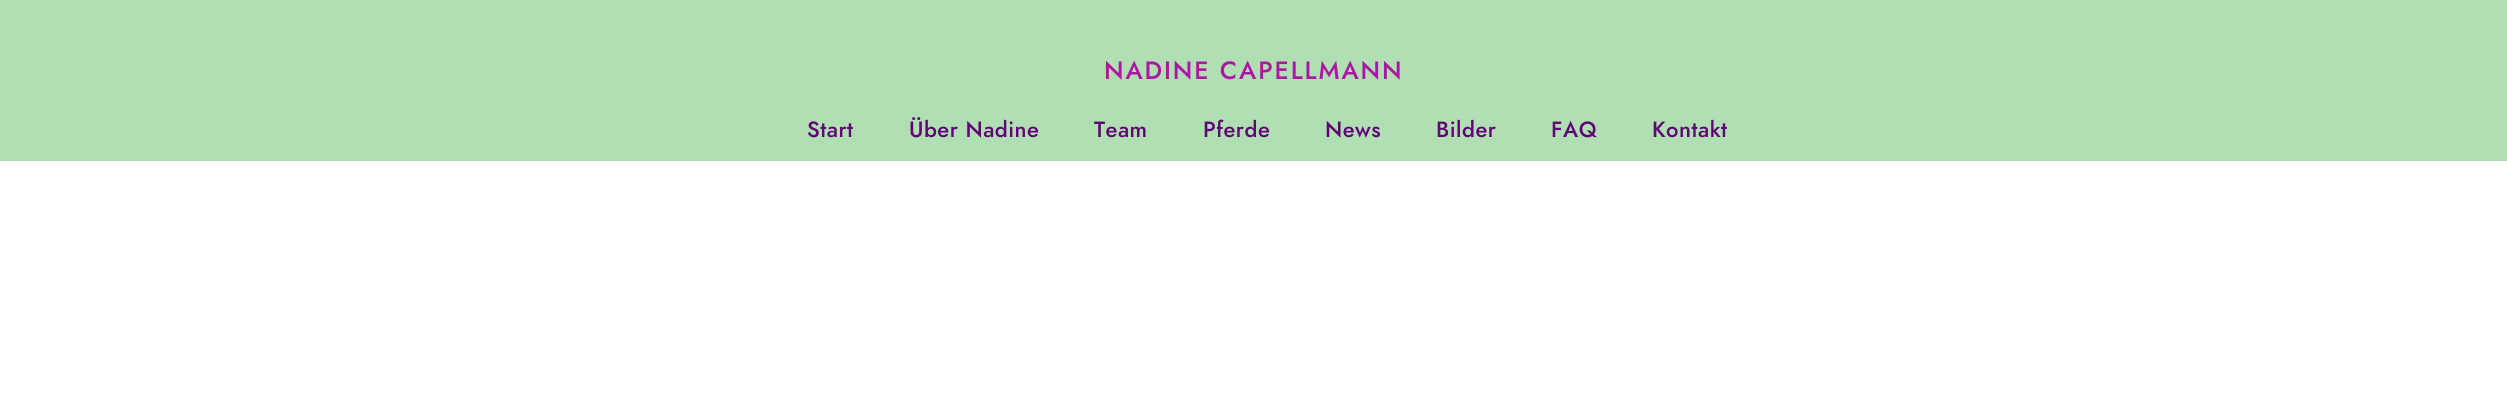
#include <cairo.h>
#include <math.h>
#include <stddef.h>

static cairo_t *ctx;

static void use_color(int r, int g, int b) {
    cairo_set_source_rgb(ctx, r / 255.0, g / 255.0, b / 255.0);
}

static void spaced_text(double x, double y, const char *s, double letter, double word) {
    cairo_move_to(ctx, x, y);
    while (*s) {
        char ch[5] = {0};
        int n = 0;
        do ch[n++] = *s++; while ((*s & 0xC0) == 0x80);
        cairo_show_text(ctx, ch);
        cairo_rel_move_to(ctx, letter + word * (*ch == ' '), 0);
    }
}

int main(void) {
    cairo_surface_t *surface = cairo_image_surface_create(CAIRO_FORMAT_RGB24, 2507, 406);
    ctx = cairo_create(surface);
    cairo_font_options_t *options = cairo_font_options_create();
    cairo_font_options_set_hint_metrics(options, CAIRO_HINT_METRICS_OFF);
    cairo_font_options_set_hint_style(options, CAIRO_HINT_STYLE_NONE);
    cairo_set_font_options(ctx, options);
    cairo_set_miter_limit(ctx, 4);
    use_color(255, 255, 255);
    cairo_paint(ctx);
    use_color(177, 223, 180);
    cairo_rectangle(ctx, 0, 0, 2507, 161);
    cairo_fill(ctx);
    cairo_select_font_face(ctx, "Jost Medium", CAIRO_FONT_SLANT_NORMAL, CAIRO_FONT_WEIGHT_NORMAL);
    cairo_set_font_size(ctx, 25);
    use_color(171, 22, 164);
    spaced_text(1104, 79, "NADINE CAPELLMANN", 1.9, 0);
    cairo_set_font_size(ctx, 22);
    use_color(97, 1, 118);
    spaced_text(807, 137, "Start", 0.5, 0);
    spaced_text(909, 137, "Über Nadine", 0.5, 0);
    spaced_text(1094, 137, "Team", 0.5, 0);
    spaced_text(1203, 137, "Pferde", 0.5, 0);
    spaced_text(1325, 137, "News", 0.5, 0);
    spaced_text(1436, 137, "Bilder", 0.5, 0);
    spaced_text(1551, 137, "FAQ", 0.5, 0);
    spaced_text(1652, 137, "Kontakt", 0.5, 0);
    cairo_surface_write_to_png(surface, "result.png");
    cairo_font_options_destroy(options);
    cairo_destroy(ctx);
    cairo_surface_destroy(surface);
    return 0;
}
